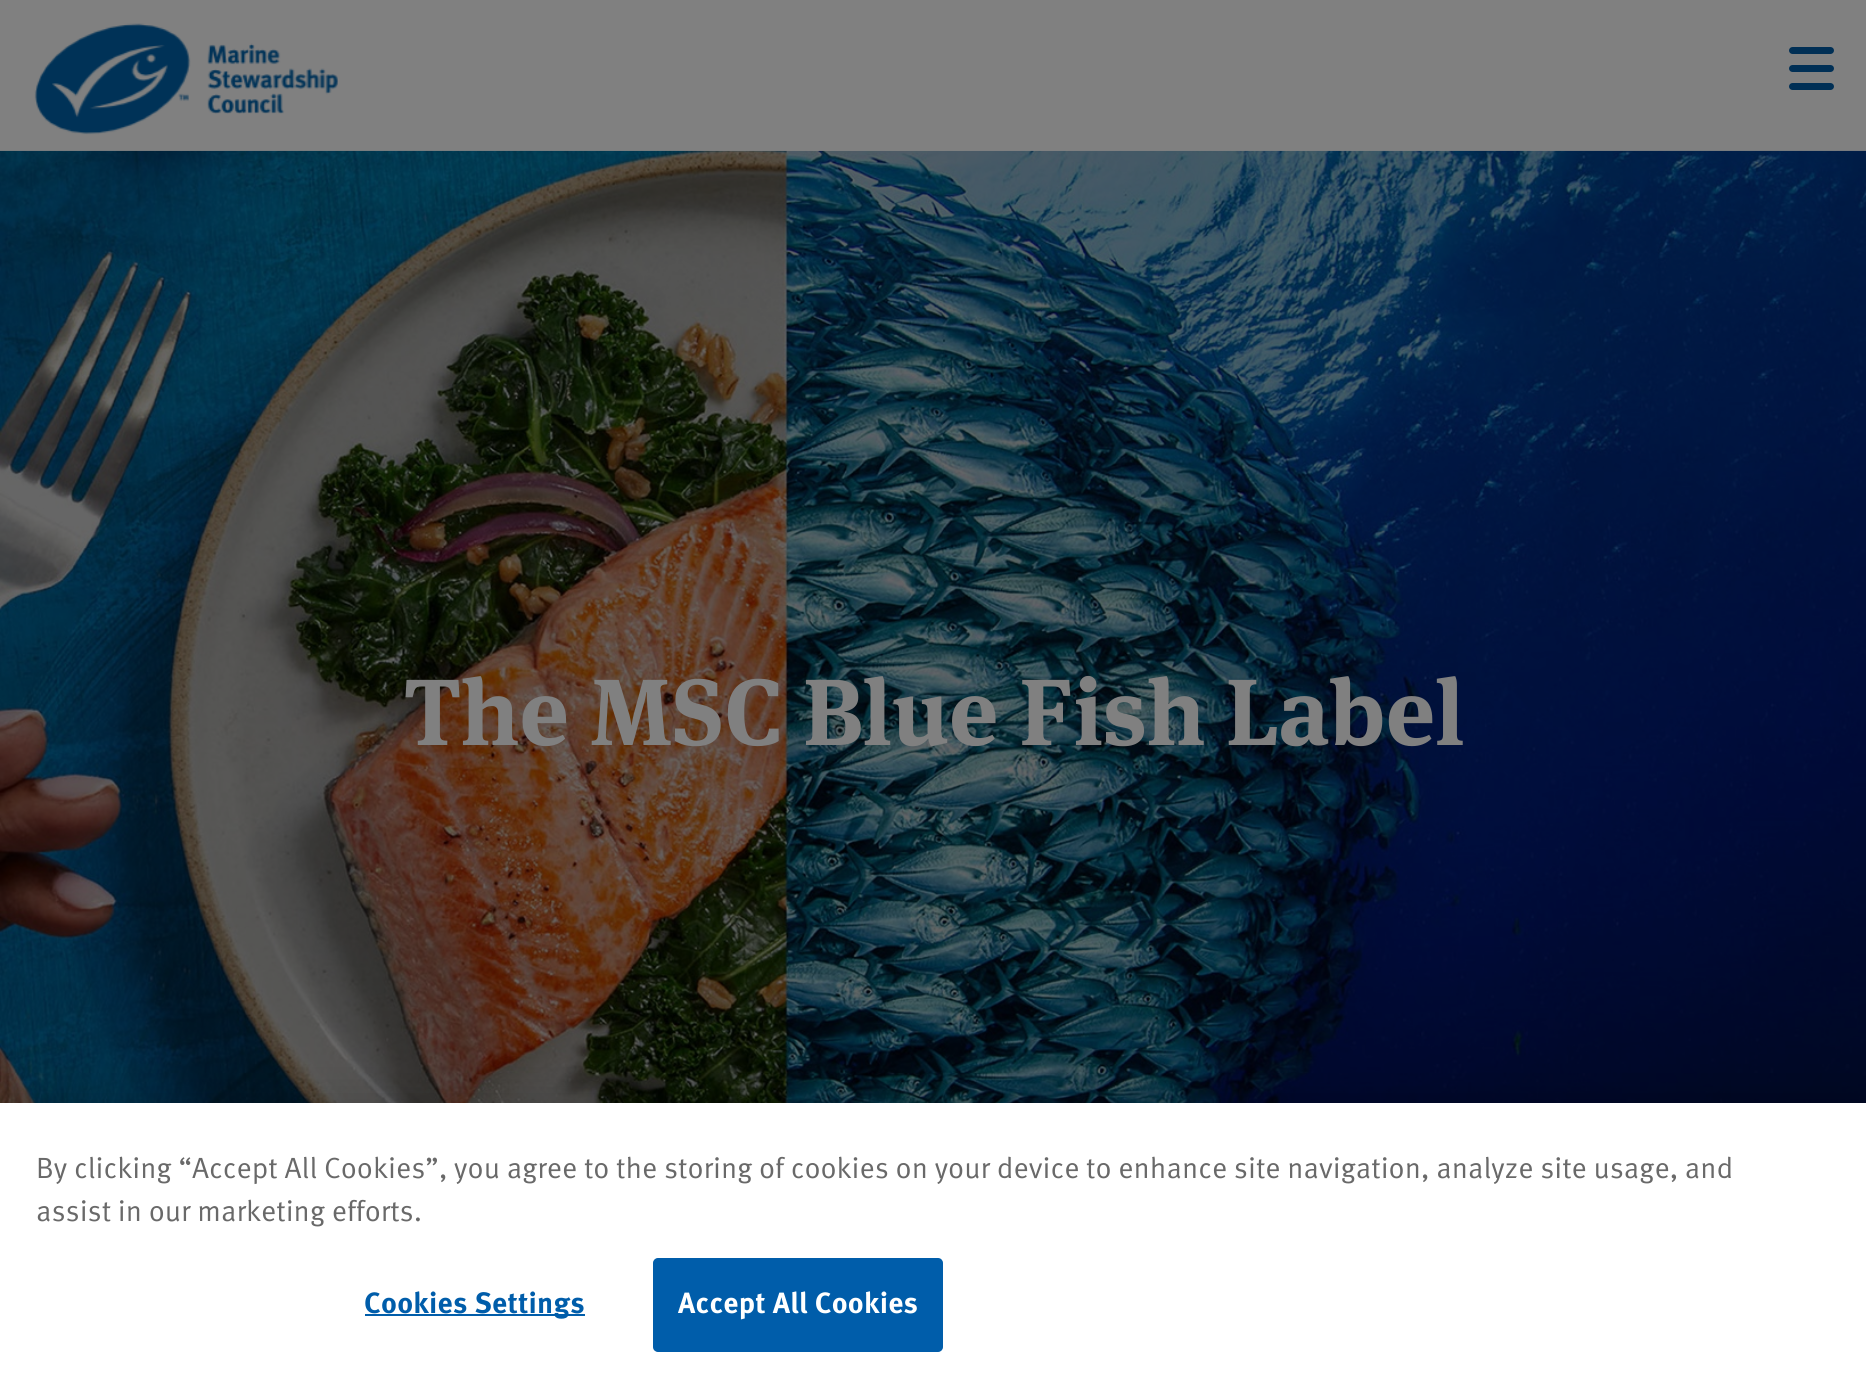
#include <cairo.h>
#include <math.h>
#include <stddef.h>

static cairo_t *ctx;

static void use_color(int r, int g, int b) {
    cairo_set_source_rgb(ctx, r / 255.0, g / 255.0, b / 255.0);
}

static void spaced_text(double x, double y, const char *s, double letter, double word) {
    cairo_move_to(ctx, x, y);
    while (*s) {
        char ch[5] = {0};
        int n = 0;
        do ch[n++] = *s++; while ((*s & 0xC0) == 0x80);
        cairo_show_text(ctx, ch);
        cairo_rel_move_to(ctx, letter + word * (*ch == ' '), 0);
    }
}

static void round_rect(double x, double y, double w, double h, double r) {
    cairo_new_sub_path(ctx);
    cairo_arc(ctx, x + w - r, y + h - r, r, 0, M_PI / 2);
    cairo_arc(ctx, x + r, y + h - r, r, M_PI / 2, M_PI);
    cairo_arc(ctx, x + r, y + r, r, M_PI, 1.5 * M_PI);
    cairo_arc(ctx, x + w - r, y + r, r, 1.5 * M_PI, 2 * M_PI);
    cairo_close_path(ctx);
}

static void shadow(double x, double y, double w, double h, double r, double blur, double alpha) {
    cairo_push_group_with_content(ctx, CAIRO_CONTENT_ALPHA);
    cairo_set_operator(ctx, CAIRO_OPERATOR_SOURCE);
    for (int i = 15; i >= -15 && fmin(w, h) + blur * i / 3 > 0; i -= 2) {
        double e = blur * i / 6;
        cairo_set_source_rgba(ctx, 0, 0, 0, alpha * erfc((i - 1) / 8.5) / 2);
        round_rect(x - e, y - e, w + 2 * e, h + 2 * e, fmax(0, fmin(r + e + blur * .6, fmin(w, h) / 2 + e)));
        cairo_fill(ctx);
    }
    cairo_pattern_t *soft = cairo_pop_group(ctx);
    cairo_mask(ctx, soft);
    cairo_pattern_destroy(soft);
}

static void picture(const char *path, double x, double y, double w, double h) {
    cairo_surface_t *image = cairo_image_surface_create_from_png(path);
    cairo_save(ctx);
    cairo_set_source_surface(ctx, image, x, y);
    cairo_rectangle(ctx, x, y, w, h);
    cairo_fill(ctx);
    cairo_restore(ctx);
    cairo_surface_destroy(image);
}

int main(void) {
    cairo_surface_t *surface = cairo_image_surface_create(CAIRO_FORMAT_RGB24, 1866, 1388);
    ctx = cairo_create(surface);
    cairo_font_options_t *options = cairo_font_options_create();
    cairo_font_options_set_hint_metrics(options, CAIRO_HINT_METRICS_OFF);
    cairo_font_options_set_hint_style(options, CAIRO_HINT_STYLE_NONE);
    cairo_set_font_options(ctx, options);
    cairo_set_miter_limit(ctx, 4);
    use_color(128, 128, 128);
    cairo_paint(ctx);
    picture("img1.png", 34, 23, 304, 112);
    use_color(0, 47, 85);
    round_rect(1789, 47, 45, 7, 3.5);
    cairo_fill(ctx);
    round_rect(1789, 65, 45, 7, 3.5);
    cairo_fill(ctx);
    round_rect(1789, 83, 45, 7, 3.5);
    cairo_fill(ctx);
    picture("img2.png", 0, 150, 1866, 953);
    cairo_select_font_face(ctx, "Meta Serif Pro", CAIRO_FONT_SLANT_NORMAL, CAIRO_FONT_WEIGHT_BOLD);
    cairo_set_font_size(ctx, 93.75);
    use_color(128, 128, 128);
    cairo_move_to(ctx, 404, 745);
    cairo_show_text(ctx, "The MSC Blue Fish Label");
    use_color(0, 0, 0);
    shadow(0, 1103, 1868, 285, 0, 20, 0.2);
    use_color(255, 255, 255);
    cairo_rectangle(ctx, 0, 1103, 1866, 285);
    cairo_fill(ctx);
    cairo_select_font_face(ctx, "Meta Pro", CAIRO_FONT_SLANT_NORMAL, CAIRO_FONT_WEIGHT_NORMAL);
    cairo_set_font_size(ctx, 29.27);
    use_color(105, 105, 105);
    cairo_move_to(ctx, 36, 1178);
    cairo_show_text(ctx, "By clicking “Accept All Cookies”, you agree to the storing of cookies on your device to enhance site navigation, analyze site usage, and");
    cairo_move_to(ctx, 36, 1221);
    cairo_show_text(ctx, "assist in our marketing efforts.");
    use_color(0, 93, 170);
    cairo_rectangle(ctx, 365, 1314, 220, 2);
    cairo_fill(ctx);
    cairo_select_font_face(ctx, "Meta Pro", CAIRO_FONT_SLANT_NORMAL, CAIRO_FONT_WEIGHT_BOLD);
    spaced_text(364, 1313, "Cookies Settings", 0.25, 0);
    round_rect(654, 1259, 288, 92, 4);
    cairo_fill_preserve(ctx);
    cairo_stroke(ctx);
    use_color(255, 255, 255);
    spaced_text(678, 1313, "Accept All Cookies", 0.25, 0);
    cairo_surface_write_to_png(surface, "result.png");
    cairo_font_options_destroy(options);
    cairo_destroy(ctx);
    cairo_surface_destroy(surface);
    return 0;
}
